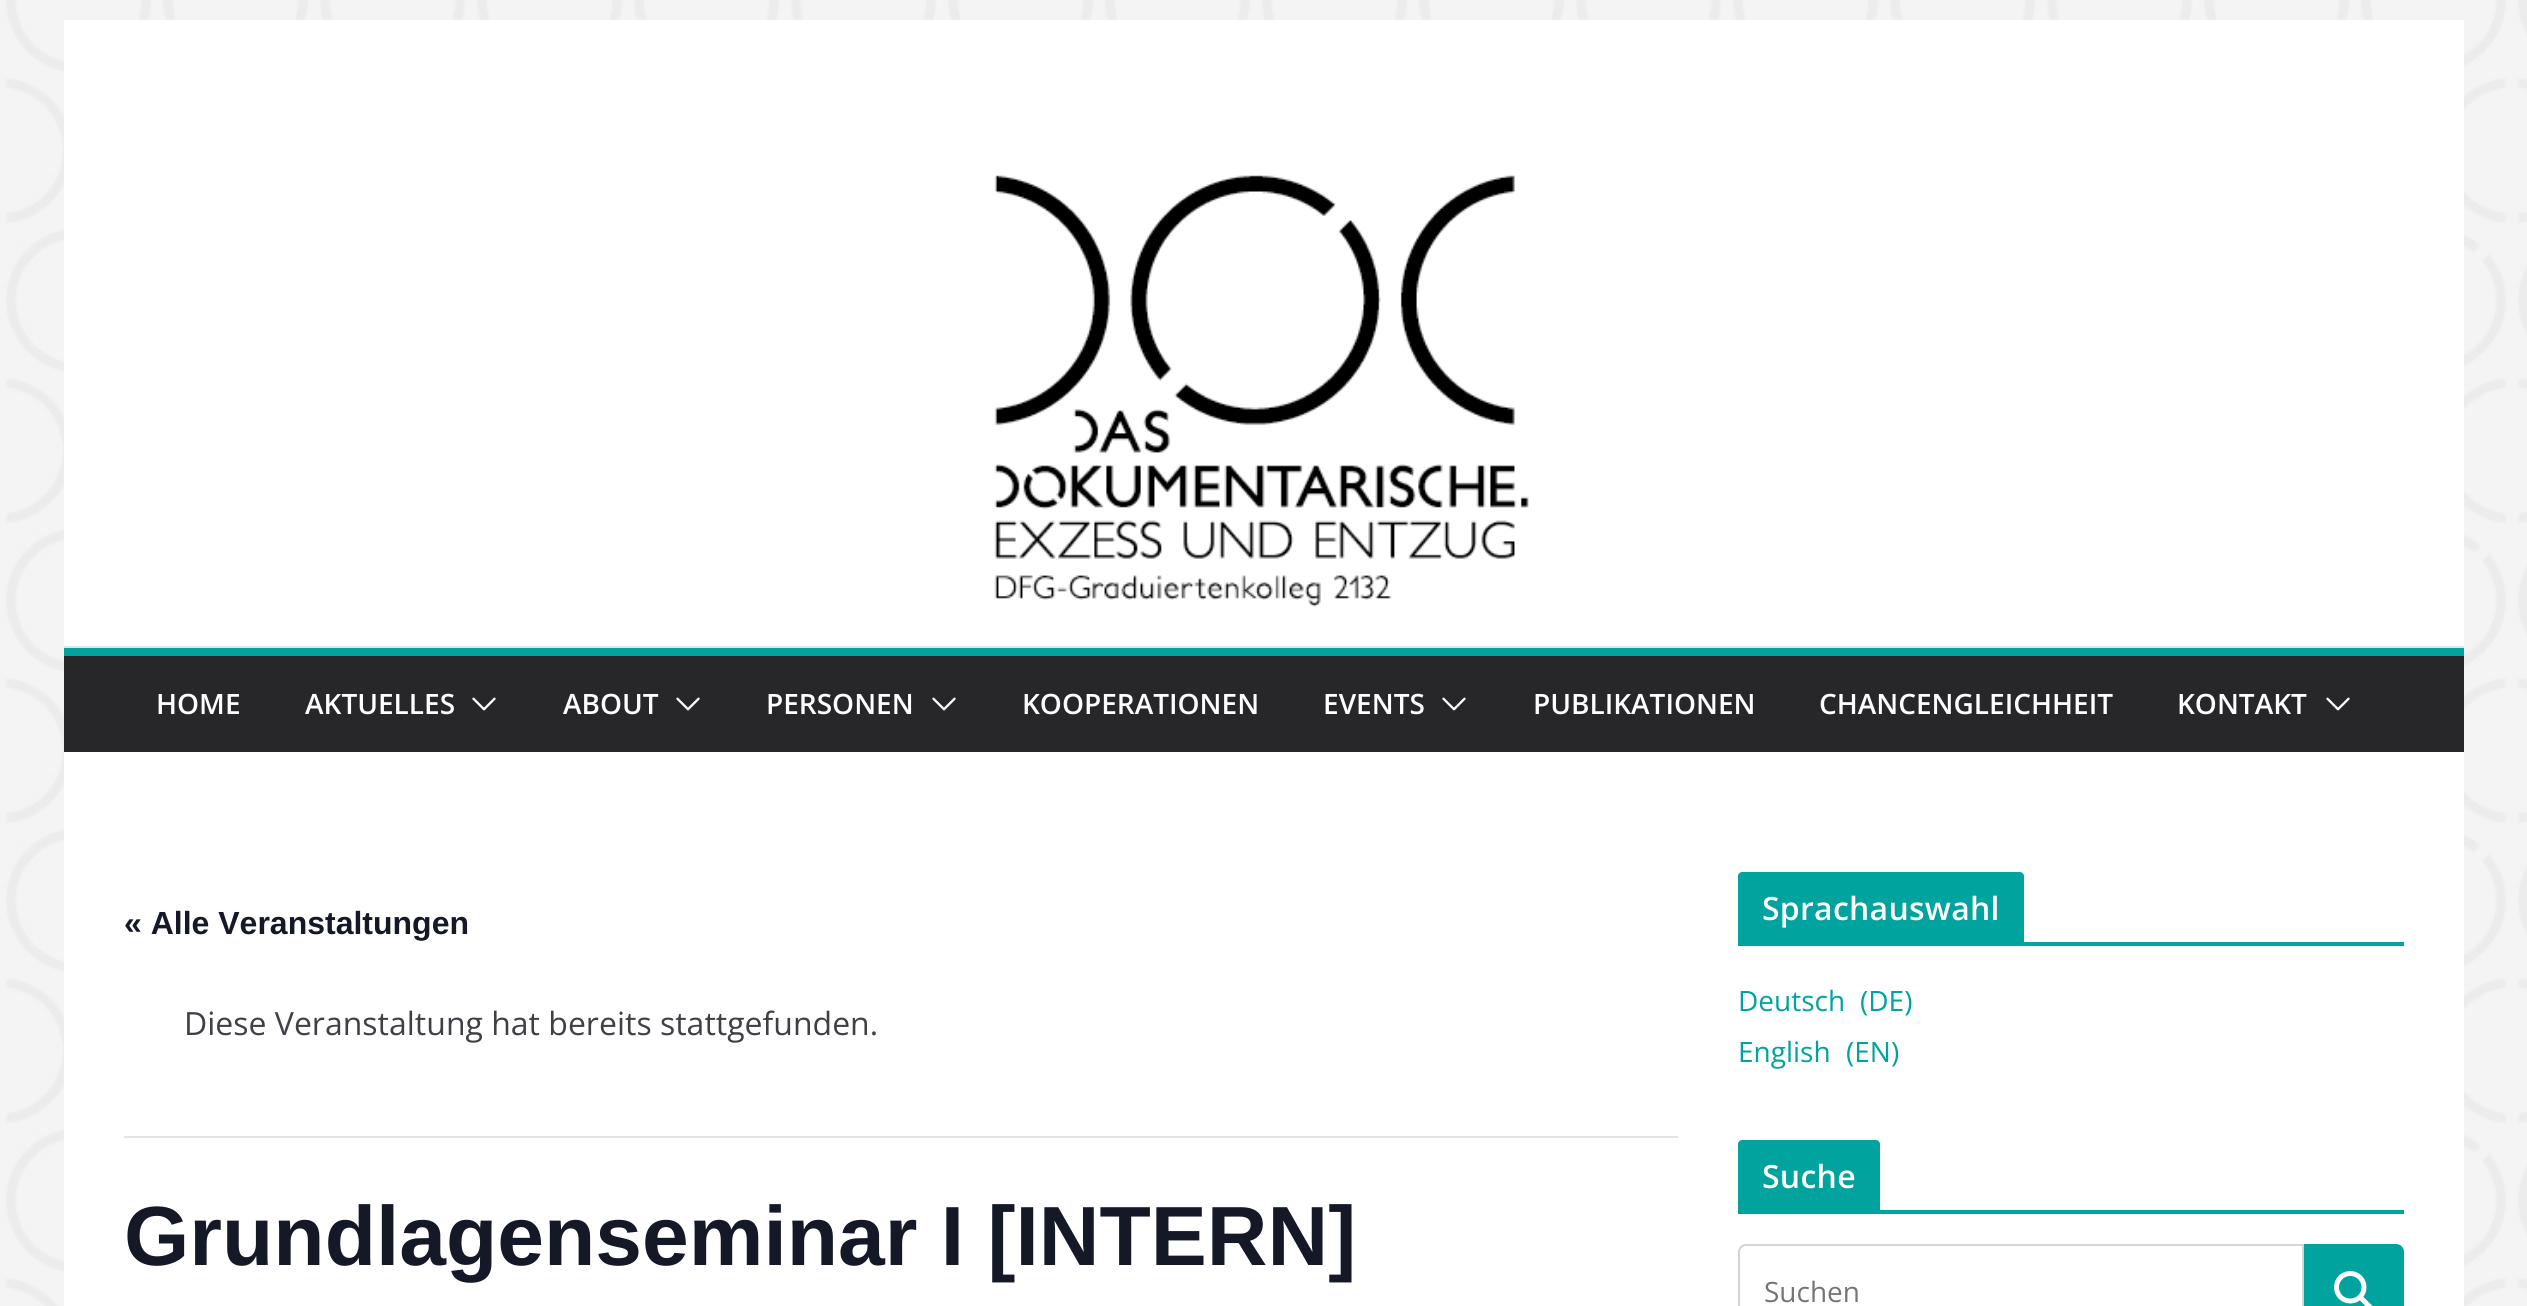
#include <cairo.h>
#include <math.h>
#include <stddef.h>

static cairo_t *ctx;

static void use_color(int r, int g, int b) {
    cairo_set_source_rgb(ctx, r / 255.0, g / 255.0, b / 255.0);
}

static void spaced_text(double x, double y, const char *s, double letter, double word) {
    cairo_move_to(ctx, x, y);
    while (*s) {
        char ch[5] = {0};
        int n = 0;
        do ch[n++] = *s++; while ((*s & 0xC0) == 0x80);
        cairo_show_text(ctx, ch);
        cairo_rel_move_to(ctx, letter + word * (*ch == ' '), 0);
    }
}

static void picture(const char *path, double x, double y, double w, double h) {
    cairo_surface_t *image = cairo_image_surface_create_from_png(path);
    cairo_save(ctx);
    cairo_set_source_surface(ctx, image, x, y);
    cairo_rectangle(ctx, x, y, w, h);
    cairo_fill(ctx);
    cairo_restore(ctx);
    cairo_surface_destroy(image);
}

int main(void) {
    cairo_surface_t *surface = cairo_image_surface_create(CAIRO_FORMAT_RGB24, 2527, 1306);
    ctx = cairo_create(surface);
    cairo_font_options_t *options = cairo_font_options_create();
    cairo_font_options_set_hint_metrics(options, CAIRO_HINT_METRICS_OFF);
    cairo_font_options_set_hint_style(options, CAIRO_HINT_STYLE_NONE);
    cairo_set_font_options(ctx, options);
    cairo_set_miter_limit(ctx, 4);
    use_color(255, 255, 255);
    cairo_paint(ctx);
    picture("img1.png", 0, 0, 2527, 1306);
    use_color(255, 255, 255);
    cairo_rectangle(ctx, 64, 20, 2400, 626);
    cairo_fill(ctx);
    picture("img2.png", 994, 175, 535, 432);
    use_color(228, 228, 231);
    cairo_rectangle(ctx, 64, 646, 2400, 2);
    cairo_fill(ctx);
    use_color(39, 39, 42);
    cairo_rectangle(ctx, 64, 656, 2400, 96);
    cairo_fill(ctx);
    use_color(0, 163, 157);
    cairo_rectangle(ctx, 64, 648, 2400, 8);
    cairo_fill(ctx);
    cairo_select_font_face(ctx, "Open Sans SemiBold", CAIRO_FONT_SLANT_NORMAL, CAIRO_FONT_WEIGHT_NORMAL);
    cairo_set_font_size(ctx, 28);
    use_color(255, 255, 255);
    cairo_move_to(ctx, 156, 714);
    cairo_show_text(ctx, "HOME");
    cairo_move_to(ctx, 305, 714);
    cairo_show_text(ctx, "AKTUELLES");
    picture("img3.png", 472, 697, 24, 14);
    cairo_move_to(ctx, 563, 714);
    cairo_show_text(ctx, "ABOUT");
    picture("img3.png", 676, 697, 24, 14);
    cairo_move_to(ctx, 766, 714);
    cairo_show_text(ctx, "PERSONEN");
    picture("img3.png", 932, 697, 24, 14);
    cairo_move_to(ctx, 1022, 714);
    cairo_show_text(ctx, "KOOPERATIONEN");
    cairo_move_to(ctx, 1323, 714);
    cairo_show_text(ctx, "EVENTS");
    picture("img3.png", 1442, 697, 24, 14);
    cairo_move_to(ctx, 1533, 714);
    cairo_show_text(ctx, "PUBLIKATIONEN");
    cairo_move_to(ctx, 1819, 714);
    cairo_show_text(ctx, "CHANCENGLEICHHEIT");
    cairo_move_to(ctx, 2177, 714);
    cairo_show_text(ctx, "KONTAKT");
    picture("img3.png", 2326, 697, 24, 14);
    cairo_rectangle(ctx, 64, 752, 2400, 554);
    cairo_fill(ctx);
    cairo_select_font_face(ctx, "Liberation Sans", CAIRO_FONT_SLANT_NORMAL, CAIRO_FONT_WEIGHT_BOLD);
    cairo_set_font_size(ctx, 32);
    use_color(20, 24, 39);
    cairo_move_to(ctx, 124, 934);
    cairo_show_text(ctx, "« Alle Veranstaltungen");
    use_color(228, 228, 228);
    cairo_rectangle(ctx, 124, 1136, 1554, 2);
    cairo_fill(ctx);
    cairo_select_font_face(ctx, "Open Sans", CAIRO_FONT_SLANT_NORMAL, CAIRO_FONT_WEIGHT_NORMAL);
    use_color(63, 63, 70);
    cairo_move_to(ctx, 184, 1035);
    cairo_show_text(ctx, "Diese Veranstaltung hat bereits stattgefunden.");
    cairo_select_font_face(ctx, "Liberation Sans", CAIRO_FONT_SLANT_NORMAL, CAIRO_FONT_WEIGHT_BOLD);
    cairo_set_font_size(ctx, 84);
    use_color(20, 24, 39);
    cairo_move_to(ctx, 124, 1265);
    cairo_show_text(ctx, "Grundlagenseminar I [INTERN]");
    use_color(0, 163, 157);
    cairo_rectangle(ctx, 1738, 942, 666, 4);
    cairo_fill(ctx);
    cairo_new_path(ctx);
    cairo_move_to(ctx, 1742, 872);
    cairo_line_to(ctx, 2020, 872);
    cairo_curve_to(ctx, 2022, 872, 2024, 874, 2024, 876);
    cairo_line_to(ctx, 2024, 942);
    cairo_line_to(ctx, 1738, 942);
    cairo_line_to(ctx, 1738, 876);
    cairo_curve_to(ctx, 1738, 874, 1740, 872, 1742, 872);
    cairo_close_path(ctx);
    cairo_fill(ctx);
    cairo_select_font_face(ctx, "Open Sans SemiBold", CAIRO_FONT_SLANT_NORMAL, CAIRO_FONT_WEIGHT_NORMAL);
    cairo_set_font_size(ctx, 32);
    use_color(255, 255, 255);
    spaced_text(1762, 920, "Sprachauswahl", 0.25, 0);
    cairo_select_font_face(ctx, "Open Sans", CAIRO_FONT_SLANT_NORMAL, CAIRO_FONT_WEIGHT_NORMAL);
    cairo_set_font_size(ctx, 28);
    use_color(0, 163, 157);
    cairo_move_to(ctx, 1738, 1011);
    cairo_show_text(ctx, "Deutsch");
    cairo_move_to(ctx, 1860, 1011);
    cairo_show_text(ctx, "(DE)");
    cairo_move_to(ctx, 1738, 1062);
    cairo_show_text(ctx, "English");
    cairo_move_to(ctx, 1846, 1062);
    cairo_show_text(ctx, "(EN)");
    cairo_rectangle(ctx, 1738, 1210, 666, 4);
    cairo_fill(ctx);
    cairo_new_path(ctx);
    cairo_move_to(ctx, 1742, 1140);
    cairo_line_to(ctx, 1876, 1140);
    cairo_curve_to(ctx, 1878, 1140, 1880, 1142, 1880, 1144);
    cairo_line_to(ctx, 1880, 1210);
    cairo_line_to(ctx, 1738, 1210);
    cairo_line_to(ctx, 1738, 1144);
    cairo_curve_to(ctx, 1738, 1142, 1740, 1140, 1742, 1140);
    cairo_close_path(ctx);
    cairo_fill(ctx);
    cairo_select_font_face(ctx, "Open Sans SemiBold", CAIRO_FONT_SLANT_NORMAL, CAIRO_FONT_WEIGHT_NORMAL);
    cairo_set_font_size(ctx, 32);
    use_color(255, 255, 255);
    spaced_text(1762, 1188, "Suche", 0.25, 0);
    cairo_new_path(ctx);
    cairo_move_to(ctx, 1746, 1245);
    cairo_line_to(ctx, 2303, 1245);
    cairo_line_to(ctx, 2303, 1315);
    cairo_line_to(ctx, 1746, 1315);
    cairo_curve_to(ctx, 1742, 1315, 1739, 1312, 1739, 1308);
    cairo_line_to(ctx, 1739, 1252);
    cairo_curve_to(ctx, 1739, 1248, 1742, 1245, 1746, 1245);
    cairo_close_path(ctx);
    use_color(212, 212, 216);
    cairo_stroke(ctx);
    cairo_select_font_face(ctx, "Open Sans", CAIRO_FONT_SLANT_NORMAL, CAIRO_FONT_WEIGHT_NORMAL);
    cairo_set_font_size(ctx, 28);
    use_color(117, 117, 117);
    cairo_move_to(ctx, 1764, 1302);
    cairo_show_text(ctx, "Suchen");
    use_color(0, 163, 157);
    cairo_new_path(ctx);
    cairo_move_to(ctx, 2305, 1245);
    cairo_line_to(ctx, 2396, 1245);
    cairo_curve_to(ctx, 2400, 1245, 2403, 1248, 2403, 1252);
    cairo_line_to(ctx, 2403, 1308);
    cairo_curve_to(ctx, 2403, 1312, 2400, 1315, 2396, 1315);
    cairo_line_to(ctx, 2305, 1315);
    cairo_close_path(ctx);
    cairo_fill_preserve(ctx);
    cairo_stroke(ctx);
    picture("img4.png", 2334, 1271, 39, 35);
    cairo_surface_write_to_png(surface, "result.png");
    cairo_font_options_destroy(options);
    cairo_destroy(ctx);
    cairo_surface_destroy(surface);
    return 0;
}
